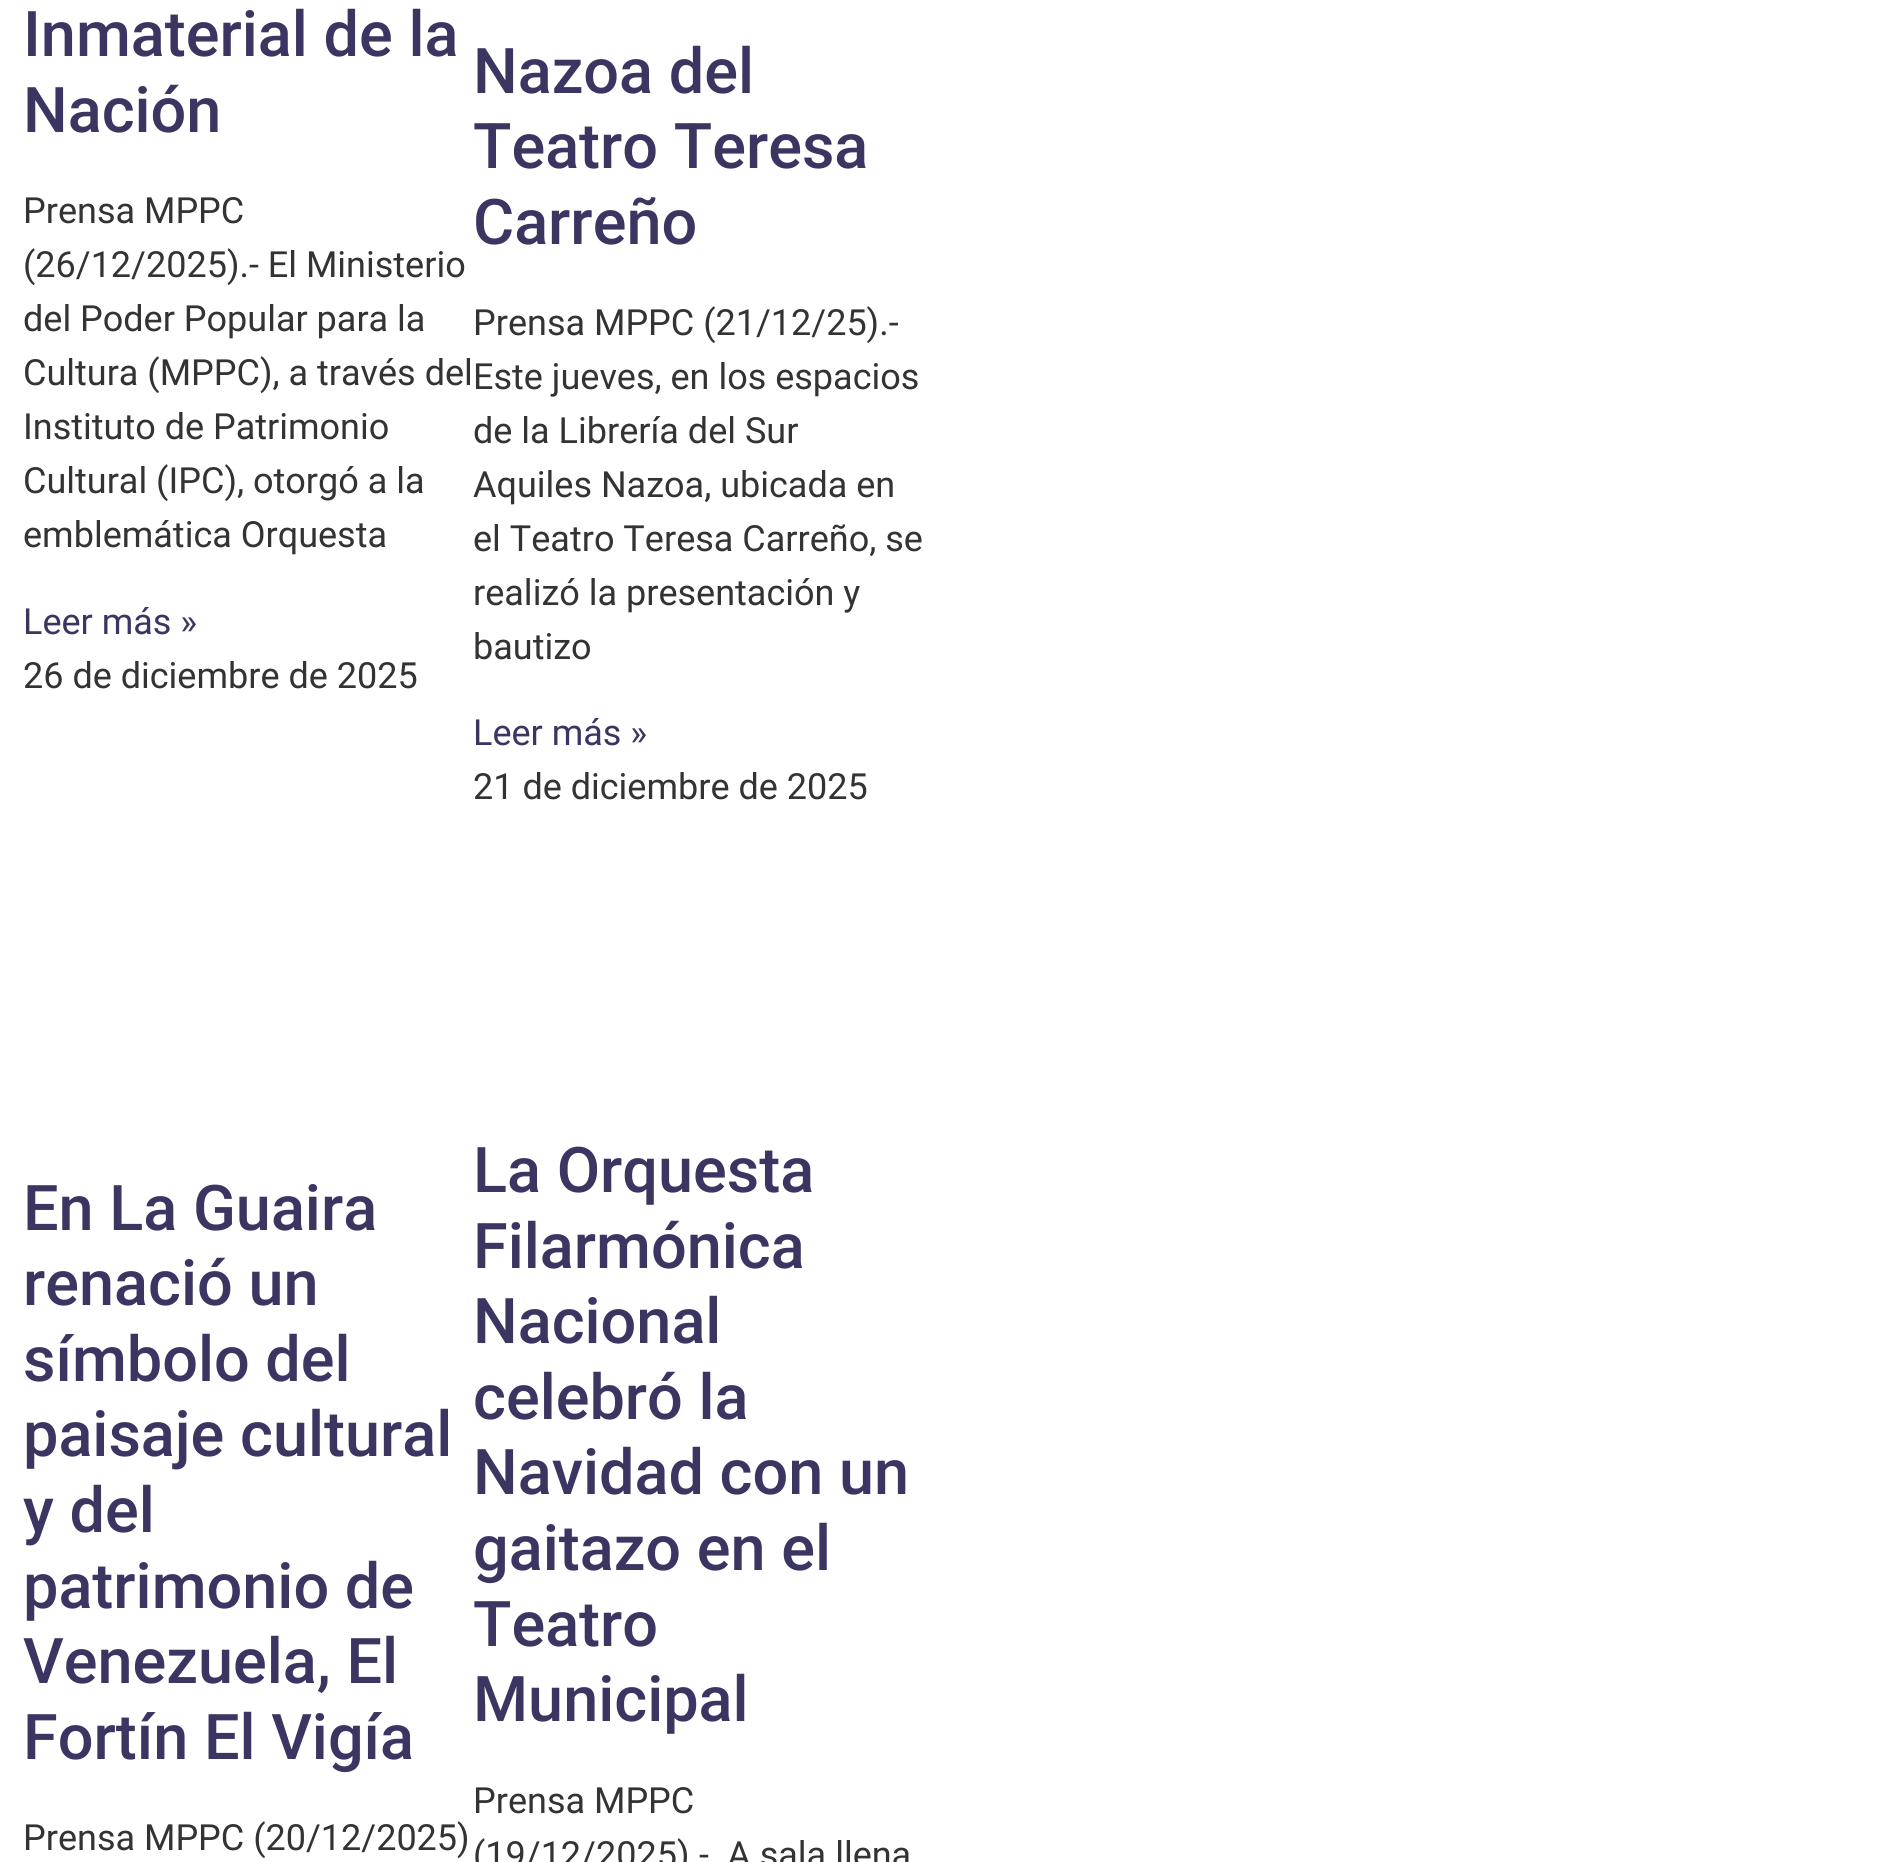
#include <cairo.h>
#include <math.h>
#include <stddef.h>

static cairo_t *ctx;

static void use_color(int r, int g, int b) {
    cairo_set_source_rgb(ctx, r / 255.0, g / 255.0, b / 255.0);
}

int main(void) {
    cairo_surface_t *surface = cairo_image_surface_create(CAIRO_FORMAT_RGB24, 1891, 1862);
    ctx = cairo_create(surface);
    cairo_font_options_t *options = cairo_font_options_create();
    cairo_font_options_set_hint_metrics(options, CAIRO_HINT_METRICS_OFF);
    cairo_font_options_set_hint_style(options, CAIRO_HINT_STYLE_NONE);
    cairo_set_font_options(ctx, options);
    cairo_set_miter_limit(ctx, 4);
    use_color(255, 255, 255);
    cairo_paint(ctx);
    cairo_select_font_face(ctx, "Roboto Medium", CAIRO_FONT_SLANT_NORMAL, CAIRO_FONT_WEIGHT_NORMAL);
    cairo_set_font_size(ctx, 63);
    use_color(59, 53, 97);
    cairo_move_to(ctx, 23, 56);
    cairo_show_text(ctx, "Inmaterial de la");
    cairo_move_to(ctx, 23, 132);
    cairo_show_text(ctx, "Nación");
    cairo_select_font_face(ctx, "Roboto", CAIRO_FONT_SLANT_NORMAL, CAIRO_FONT_WEIGHT_NORMAL);
    cairo_set_font_size(ctx, 36);
    use_color(51, 51, 51);
    cairo_move_to(ctx, 23, 223);
    cairo_show_text(ctx, "Prensa MPPC");
    cairo_move_to(ctx, 23, 277);
    cairo_show_text(ctx, "(26/12/2025).- El Ministerio");
    cairo_move_to(ctx, 23, 331);
    cairo_show_text(ctx, "del Poder Popular para la");
    cairo_move_to(ctx, 23, 385);
    cairo_show_text(ctx, "Cultura (MPPC), a través del");
    cairo_move_to(ctx, 23, 439);
    cairo_show_text(ctx, "Instituto de Patrimonio");
    cairo_move_to(ctx, 23, 493);
    cairo_show_text(ctx, "Cultural (IPC), otorgó a la");
    cairo_move_to(ctx, 23, 547);
    cairo_show_text(ctx, "emblemática Orquesta");
    use_color(59, 53, 97);
    cairo_move_to(ctx, 23, 634);
    cairo_show_text(ctx, "Leer más »");
    use_color(51, 51, 51);
    cairo_move_to(ctx, 23, 688);
    cairo_show_text(ctx, "26 de diciembre de 2025");
    cairo_select_font_face(ctx, "Roboto Medium", CAIRO_FONT_SLANT_NORMAL, CAIRO_FONT_WEIGHT_NORMAL);
    cairo_set_font_size(ctx, 63);
    use_color(59, 53, 97);
    cairo_move_to(ctx, 473, 93);
    cairo_show_text(ctx, "Nazoa del");
    cairo_move_to(ctx, 473, 168);
    cairo_show_text(ctx, "Teatro Teresa");
    cairo_move_to(ctx, 473, 244);
    cairo_show_text(ctx, "Carreño");
    cairo_select_font_face(ctx, "Roboto", CAIRO_FONT_SLANT_NORMAL, CAIRO_FONT_WEIGHT_NORMAL);
    cairo_set_font_size(ctx, 36);
    use_color(51, 51, 51);
    cairo_move_to(ctx, 473, 335);
    cairo_show_text(ctx, "Prensa MPPC (21/12/25).-");
    cairo_move_to(ctx, 473, 389);
    cairo_show_text(ctx, "Este jueves, en los espacios");
    cairo_move_to(ctx, 473, 443);
    cairo_show_text(ctx, "de la Librería del Sur");
    cairo_move_to(ctx, 473, 497);
    cairo_show_text(ctx, "Aquiles Nazoa, ubicada en");
    cairo_move_to(ctx, 473, 551);
    cairo_show_text(ctx, "el Teatro Teresa Carreño, se");
    cairo_move_to(ctx, 473, 605);
    cairo_show_text(ctx, "realizó la presentación y");
    cairo_move_to(ctx, 473, 659);
    cairo_show_text(ctx, "bautizo");
    use_color(59, 53, 97);
    cairo_move_to(ctx, 473, 745);
    cairo_show_text(ctx, "Leer más »");
    use_color(51, 51, 51);
    cairo_move_to(ctx, 473, 799);
    cairo_show_text(ctx, "21 de diciembre de 2025");
    cairo_select_font_face(ctx, "Roboto Medium", CAIRO_FONT_SLANT_NORMAL, CAIRO_FONT_WEIGHT_NORMAL);
    cairo_set_font_size(ctx, 63);
    use_color(59, 53, 97);
    cairo_move_to(ctx, 23, 1230);
    cairo_show_text(ctx, "En La Guaira");
    cairo_move_to(ctx, 23, 1305);
    cairo_show_text(ctx, "renació un");
    cairo_move_to(ctx, 23, 1381);
    cairo_show_text(ctx, "símbolo del");
    cairo_move_to(ctx, 23, 1456);
    cairo_show_text(ctx, "paisaje cultural");
    cairo_move_to(ctx, 23, 1532);
    cairo_show_text(ctx, "y del");
    cairo_move_to(ctx, 23, 1608);
    cairo_show_text(ctx, "patrimonio de");
    cairo_move_to(ctx, 23, 1683);
    cairo_show_text(ctx, "Venezuela, El");
    cairo_move_to(ctx, 23, 1759);
    cairo_show_text(ctx, "Fortín El Vigía");
    cairo_select_font_face(ctx, "Roboto", CAIRO_FONT_SLANT_NORMAL, CAIRO_FONT_WEIGHT_NORMAL);
    cairo_set_font_size(ctx, 36);
    use_color(51, 51, 51);
    cairo_move_to(ctx, 23, 1850);
    cairo_show_text(ctx, "Prensa MPPC (20/12/2025)");
    cairo_select_font_face(ctx, "Roboto Medium", CAIRO_FONT_SLANT_NORMAL, CAIRO_FONT_WEIGHT_NORMAL);
    cairo_set_font_size(ctx, 63);
    use_color(59, 53, 97);
    cairo_move_to(ctx, 473, 1192);
    cairo_show_text(ctx, "La Orquesta");
    cairo_move_to(ctx, 473, 1268);
    cairo_show_text(ctx, "Filarmónica");
    cairo_move_to(ctx, 473, 1343);
    cairo_show_text(ctx, "Nacional");
    cairo_move_to(ctx, 473, 1419);
    cairo_show_text(ctx, "celebró la");
    cairo_move_to(ctx, 473, 1494);
    cairo_show_text(ctx, "Navidad con un");
    cairo_move_to(ctx, 473, 1570);
    cairo_show_text(ctx, "gaitazo en el");
    cairo_move_to(ctx, 473, 1646);
    cairo_show_text(ctx, "Teatro");
    cairo_move_to(ctx, 473, 1721);
    cairo_show_text(ctx, "Municipal");
    cairo_select_font_face(ctx, "Roboto", CAIRO_FONT_SLANT_NORMAL, CAIRO_FONT_WEIGHT_NORMAL);
    cairo_set_font_size(ctx, 36);
    use_color(51, 51, 51);
    cairo_move_to(ctx, 473, 1813);
    cairo_show_text(ctx, "Prensa MPPC");
    cairo_move_to(ctx, 473, 1867);
    cairo_show_text(ctx, "(19/12/2025).-. A sala llena");
    cairo_surface_write_to_png(surface, "result.png");
    cairo_font_options_destroy(options);
    cairo_destroy(ctx);
    cairo_surface_destroy(surface);
    return 0;
}
